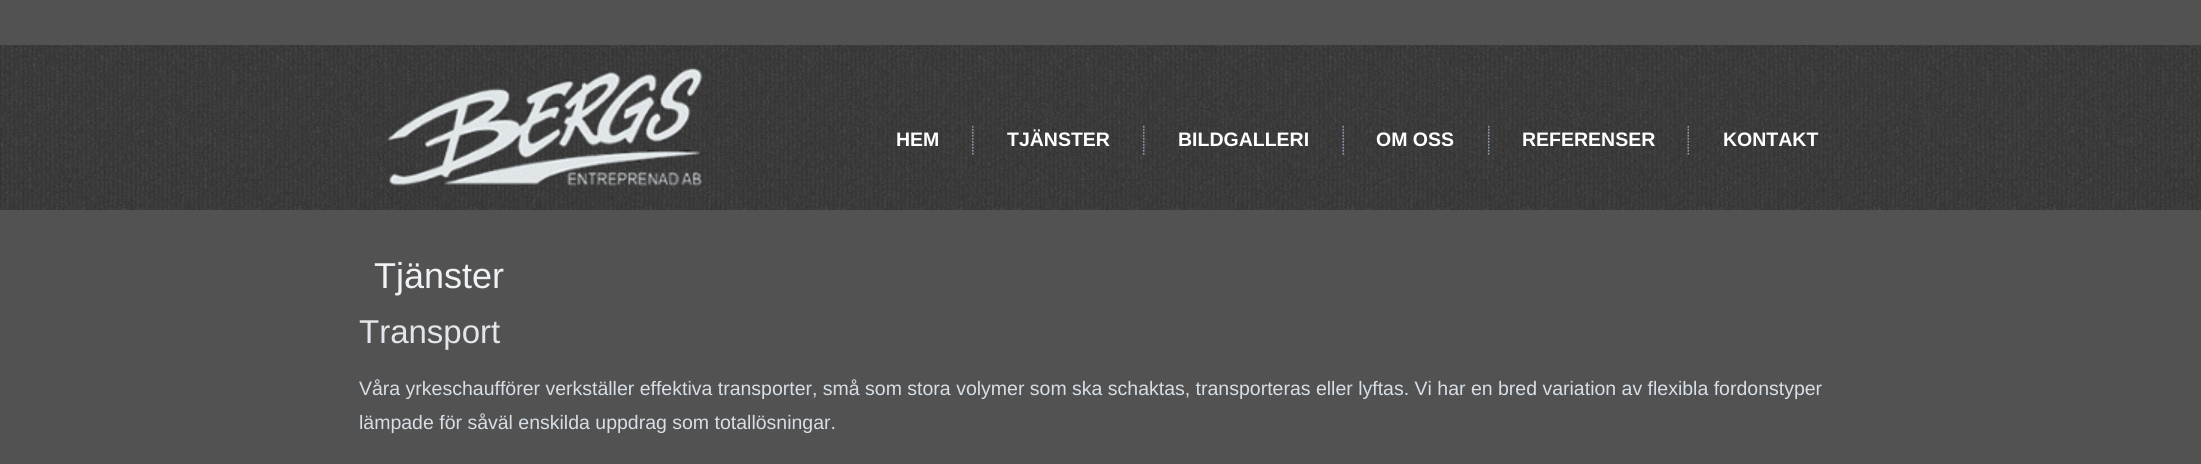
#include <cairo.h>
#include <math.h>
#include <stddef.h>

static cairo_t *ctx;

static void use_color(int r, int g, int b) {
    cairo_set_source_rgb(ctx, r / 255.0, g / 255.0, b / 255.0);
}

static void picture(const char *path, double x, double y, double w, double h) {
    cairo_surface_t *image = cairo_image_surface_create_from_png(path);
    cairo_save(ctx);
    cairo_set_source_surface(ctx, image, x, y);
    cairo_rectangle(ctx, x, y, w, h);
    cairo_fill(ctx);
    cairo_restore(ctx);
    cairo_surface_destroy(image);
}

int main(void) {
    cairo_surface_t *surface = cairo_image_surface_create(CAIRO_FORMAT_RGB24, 2201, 464);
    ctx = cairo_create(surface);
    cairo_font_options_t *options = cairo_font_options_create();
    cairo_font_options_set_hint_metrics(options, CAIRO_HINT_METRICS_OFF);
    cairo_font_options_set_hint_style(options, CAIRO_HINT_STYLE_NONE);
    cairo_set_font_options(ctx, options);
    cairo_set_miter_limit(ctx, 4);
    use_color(82, 82, 82);
    cairo_paint(ctx);
    picture("img1.png", 0, 45, 2201, 165);
    picture("img2.png", 387, 67, 316, 120);
    cairo_select_font_face(ctx, "Liberation Sans", CAIRO_FONT_SLANT_NORMAL, CAIRO_FONT_WEIGHT_BOLD);
    cairo_set_font_size(ctx, 19.5);
    use_color(255, 255, 255);
    cairo_move_to(ctx, 896, 146);
    cairo_show_text(ctx, "HEM");
    picture("img3.png", 972, 125, 2, 30);
    cairo_move_to(ctx, 1007, 146);
    cairo_show_text(ctx, "TJÄNSTER");
    picture("img4.png", 1143, 125, 2, 30);
    cairo_move_to(ctx, 1178, 146);
    cairo_show_text(ctx, "BILDGALLERI");
    picture("img5.png", 1342, 125, 2, 30);
    cairo_move_to(ctx, 1376, 146);
    cairo_show_text(ctx, "OM OSS");
    picture("img6.png", 1488, 125, 2, 30);
    cairo_move_to(ctx, 1522, 146);
    cairo_show_text(ctx, "REFERENSER");
    picture("img7.png", 1687, 125, 2, 30);
    cairo_move_to(ctx, 1723, 146);
    cairo_show_text(ctx, "KONTAKT");
    cairo_select_font_face(ctx, "Liberation Sans", CAIRO_FONT_SLANT_NORMAL, CAIRO_FONT_WEIGHT_NORMAL);
    cairo_set_font_size(ctx, 36);
    use_color(239, 242, 245);
    cairo_move_to(ctx, 374, 288);
    cairo_show_text(ctx, "Tjänster");
    cairo_set_font_size(ctx, 33);
    use_color(226, 229, 233);
    cairo_move_to(ctx, 359, 343);
    cairo_show_text(ctx, "Transport");
    cairo_set_font_size(ctx, 19.5);
    use_color(214, 222, 230);
    cairo_move_to(ctx, 359, 395);
    cairo_show_text(ctx, "Våra yrkeschaufförer verkställer effektiva transporter, små som stora volymer som ska schaktas, transporteras eller lyftas. Vi har en bred variation av flexibla fordonstyper");
    cairo_move_to(ctx, 359, 429);
    cairo_show_text(ctx, "lämpade för såväl enskilda uppdrag som totallösningar.");
    cairo_surface_write_to_png(surface, "result.png");
    cairo_font_options_destroy(options);
    cairo_destroy(ctx);
    cairo_surface_destroy(surface);
    return 0;
}
